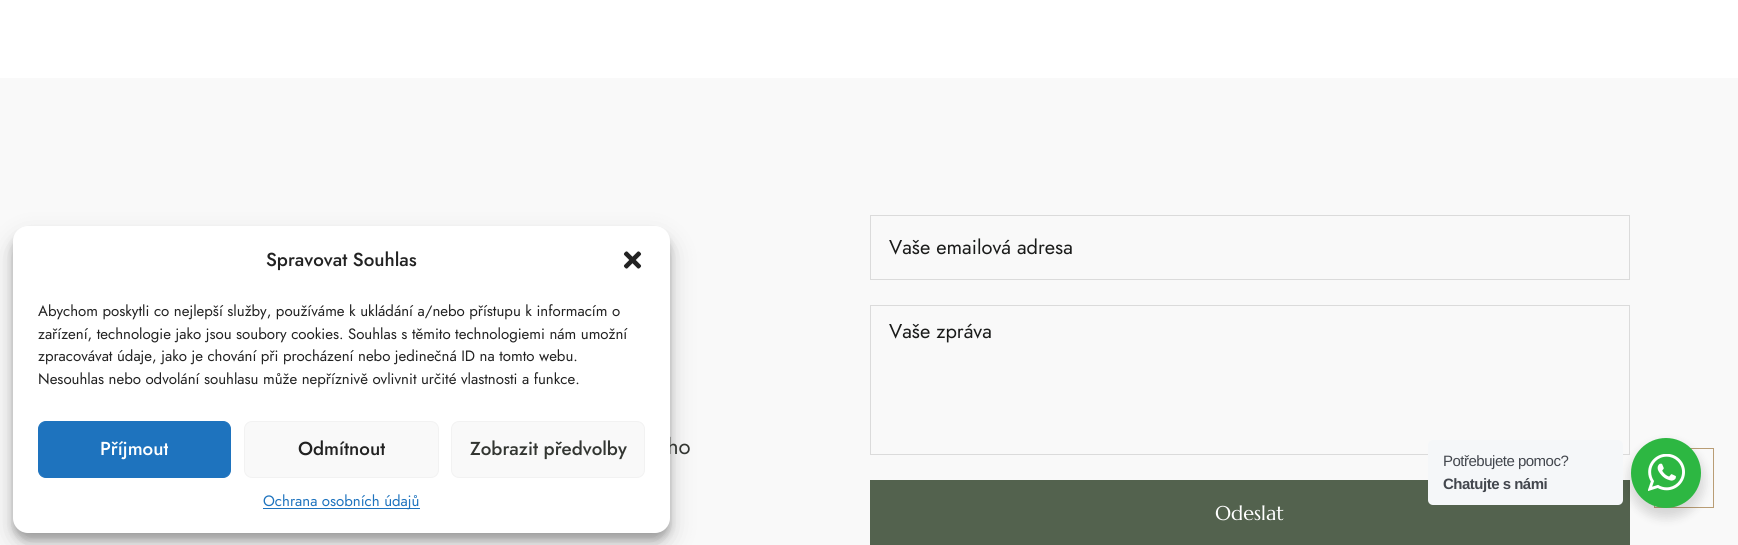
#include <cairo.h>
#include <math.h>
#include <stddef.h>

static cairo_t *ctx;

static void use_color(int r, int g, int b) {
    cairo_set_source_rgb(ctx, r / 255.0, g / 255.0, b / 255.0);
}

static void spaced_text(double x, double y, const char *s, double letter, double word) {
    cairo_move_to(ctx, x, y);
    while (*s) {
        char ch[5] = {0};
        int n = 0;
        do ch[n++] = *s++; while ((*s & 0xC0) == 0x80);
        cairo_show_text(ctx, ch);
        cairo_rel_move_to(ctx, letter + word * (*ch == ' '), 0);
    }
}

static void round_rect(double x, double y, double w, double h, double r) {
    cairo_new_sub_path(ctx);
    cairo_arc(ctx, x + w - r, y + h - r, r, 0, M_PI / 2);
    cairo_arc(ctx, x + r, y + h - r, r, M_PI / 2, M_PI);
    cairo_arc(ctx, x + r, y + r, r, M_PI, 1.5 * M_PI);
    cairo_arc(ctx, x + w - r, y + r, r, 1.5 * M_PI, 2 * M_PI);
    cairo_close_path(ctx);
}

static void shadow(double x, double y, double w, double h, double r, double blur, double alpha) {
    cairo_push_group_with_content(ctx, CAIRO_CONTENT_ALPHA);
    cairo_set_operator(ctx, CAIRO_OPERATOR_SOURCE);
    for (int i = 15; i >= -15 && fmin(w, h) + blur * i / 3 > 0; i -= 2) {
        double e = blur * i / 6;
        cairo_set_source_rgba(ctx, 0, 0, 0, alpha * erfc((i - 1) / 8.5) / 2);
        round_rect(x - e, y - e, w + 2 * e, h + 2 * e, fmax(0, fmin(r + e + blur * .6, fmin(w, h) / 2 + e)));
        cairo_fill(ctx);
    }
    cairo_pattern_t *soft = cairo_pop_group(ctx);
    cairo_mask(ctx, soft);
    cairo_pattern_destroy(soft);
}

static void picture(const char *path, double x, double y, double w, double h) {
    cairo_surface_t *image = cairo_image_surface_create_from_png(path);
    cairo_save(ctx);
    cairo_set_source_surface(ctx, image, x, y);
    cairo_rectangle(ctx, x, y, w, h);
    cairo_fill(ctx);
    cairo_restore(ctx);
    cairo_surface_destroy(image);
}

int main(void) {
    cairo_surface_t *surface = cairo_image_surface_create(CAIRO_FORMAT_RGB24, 1738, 545);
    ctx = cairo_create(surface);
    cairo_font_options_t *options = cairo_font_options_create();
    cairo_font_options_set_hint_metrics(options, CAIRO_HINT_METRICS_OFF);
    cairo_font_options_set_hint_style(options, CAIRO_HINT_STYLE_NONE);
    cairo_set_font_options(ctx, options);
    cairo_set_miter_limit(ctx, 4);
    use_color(255, 255, 255);
    cairo_paint(ctx);
    use_color(249, 249, 249);
    cairo_rectangle(ctx, 0, 78, 1738, 467);
    cairo_fill(ctx);
    use_color(0, 0, 0);
    shadow(13, 234, 657, 306, 15, 4, 0.23);
    shadow(13, 239, 657, 306, 15, 12.5, 0.19);
    cairo_select_font_face(ctx, "Jost", CAIRO_FONT_SLANT_NORMAL, CAIRO_FONT_WEIGHT_NORMAL);
    cairo_set_font_size(ctx, 22);
    use_color(51, 54, 50);
    cairo_move_to(ctx, 667, 454);
    cairo_show_text(ctx, "ho");
    use_color(255, 255, 255);
    round_rect(13, 226, 657, 307, 15);
    cairo_fill(ctx);
    cairo_select_font_face(ctx, "Jost Medium", CAIRO_FONT_SLANT_NORMAL, CAIRO_FONT_WEIGHT_NORMAL);
    cairo_set_font_size(ctx, 18.75);
    use_color(34, 34, 34);
    cairo_move_to(ctx, 266, 266);
    cairo_show_text(ctx, "Spravovat Souhlas");
    picture("img1.png", 623, 251, 19, 18);
    cairo_select_font_face(ctx, "Jost", CAIRO_FONT_SLANT_NORMAL, CAIRO_FONT_WEIGHT_NORMAL);
    cairo_set_font_size(ctx, 15);
    cairo_move_to(ctx, 38, 316);
    cairo_show_text(ctx, "Abychom poskytli co nejlepší služby, používáme k ukládání a/nebo přístupu k informacím o");
    cairo_move_to(ctx, 38, 339);
    cairo_show_text(ctx, "zařízení, technologie jako jsou soubory cookies. Souhlas s těmito technologiemi nám umožní");
    cairo_move_to(ctx, 38, 361);
    cairo_show_text(ctx, "zpracovávat údaje, jako je chování při procházení nebo jedinečná ID na tomto webu.");
    cairo_move_to(ctx, 38, 384);
    cairo_show_text(ctx, "Nesouhlas nebo odvolání souhlasu může nepříznivě ovlivnit určité vlastnosti a funkce.");
    use_color(30, 115, 190);
    round_rect(38.5, 421.5, 192, 56, 7.5);
    cairo_fill_preserve(ctx);
    cairo_set_line_width(ctx, 1);
    cairo_stroke(ctx);
    cairo_select_font_face(ctx, "Jost Medium", CAIRO_FONT_SLANT_NORMAL, CAIRO_FONT_WEIGHT_NORMAL);
    cairo_set_font_size(ctx, 18.75);
    use_color(255, 255, 255);
    cairo_move_to(ctx, 100, 455);
    cairo_show_text(ctx, "Příjmout");
    use_color(249, 249, 249);
    round_rect(244.5, 421.5, 194, 56, 7.5);
    cairo_fill_preserve(ctx);
    use_color(242, 242, 242);
    cairo_stroke(ctx);
    use_color(34, 34, 34);
    cairo_move_to(ctx, 298, 455);
    cairo_show_text(ctx, "Odmítnout");
    use_color(249, 249, 249);
    round_rect(451.5, 421.5, 193, 56, 7.5);
    cairo_fill_preserve(ctx);
    use_color(242, 242, 242);
    cairo_stroke(ctx);
    use_color(51, 54, 50);
    cairo_move_to(ctx, 470, 455);
    cairo_show_text(ctx, "Zobrazit předvolby");
    use_color(30, 115, 190);
    cairo_rectangle(ctx, 263, 508, 157, 1);
    cairo_fill(ctx);
    cairo_select_font_face(ctx, "Jost", CAIRO_FONT_SLANT_NORMAL, CAIRO_FONT_WEIGHT_NORMAL);
    cairo_set_font_size(ctx, 15);
    cairo_move_to(ctx, 263, 506);
    cairo_show_text(ctx, "Ochrana osobních údajů");
    cairo_rectangle(ctx, 870.5, 215.5, 759, 64);
    use_color(219, 219, 219);
    cairo_stroke(ctx);
    cairo_set_font_size(ctx, 20);
    use_color(26, 27, 26);
    cairo_move_to(ctx, 889, 254);
    cairo_show_text(ctx, "Vaše emailová adresa");
    cairo_rectangle(ctx, 870.5, 305.5, 759, 149);
    use_color(219, 219, 219);
    cairo_stroke(ctx);
    use_color(26, 27, 26);
    cairo_move_to(ctx, 889, 338);
    cairo_show_text(ctx, "Vaše zpráva");
    use_color(83, 98, 78);
    cairo_rectangle(ctx, 870, 480, 760, 65);
    cairo_fill(ctx);
    cairo_select_font_face(ctx, "Marcellus", CAIRO_FONT_SLANT_NORMAL, CAIRO_FONT_WEIGHT_NORMAL);
    use_color(255, 255, 255);
    cairo_move_to(ctx, 1215, 520);
    cairo_show_text(ctx, "Odeslat");
    cairo_rectangle(ctx, 1654.5, 448.5, 59, 59);
    use_color(185, 157, 117);
    cairo_stroke(ctx);
    use_color(0, 0, 0);
    shadow(1629, 443, 75, 75, 37.5, 5, 0.14);
    use_color(245, 247, 249);
    round_rect(1428, 440, 195, 65, 5);
    cairo_fill(ctx);
    cairo_select_font_face(ctx, "Liberation Sans", CAIRO_FONT_SLANT_NORMAL, CAIRO_FONT_WEIGHT_NORMAL);
    cairo_set_font_size(ctx, 15);
    use_color(67, 71, 78);
    spaced_text(1443, 466, "Potřebujete pomoc?", -0.5, 0);
    cairo_select_font_face(ctx, "Liberation Sans", CAIRO_FONT_SLANT_NORMAL, CAIRO_FONT_WEIGHT_BOLD);
    spaced_text(1443, 489, "Chatujte s námi", -0.5, 0);
    use_color(45, 183, 66);
    cairo_new_path(ctx);
    cairo_arc(ctx, 1666, 473, 35, 0, 2 * M_PI);
    cairo_fill(ctx);
    picture("img2.png", 1648, 454, 37, 37);
    cairo_surface_write_to_png(surface, "result.png");
    cairo_font_options_destroy(options);
    cairo_destroy(ctx);
    cairo_surface_destroy(surface);
    return 0;
}
